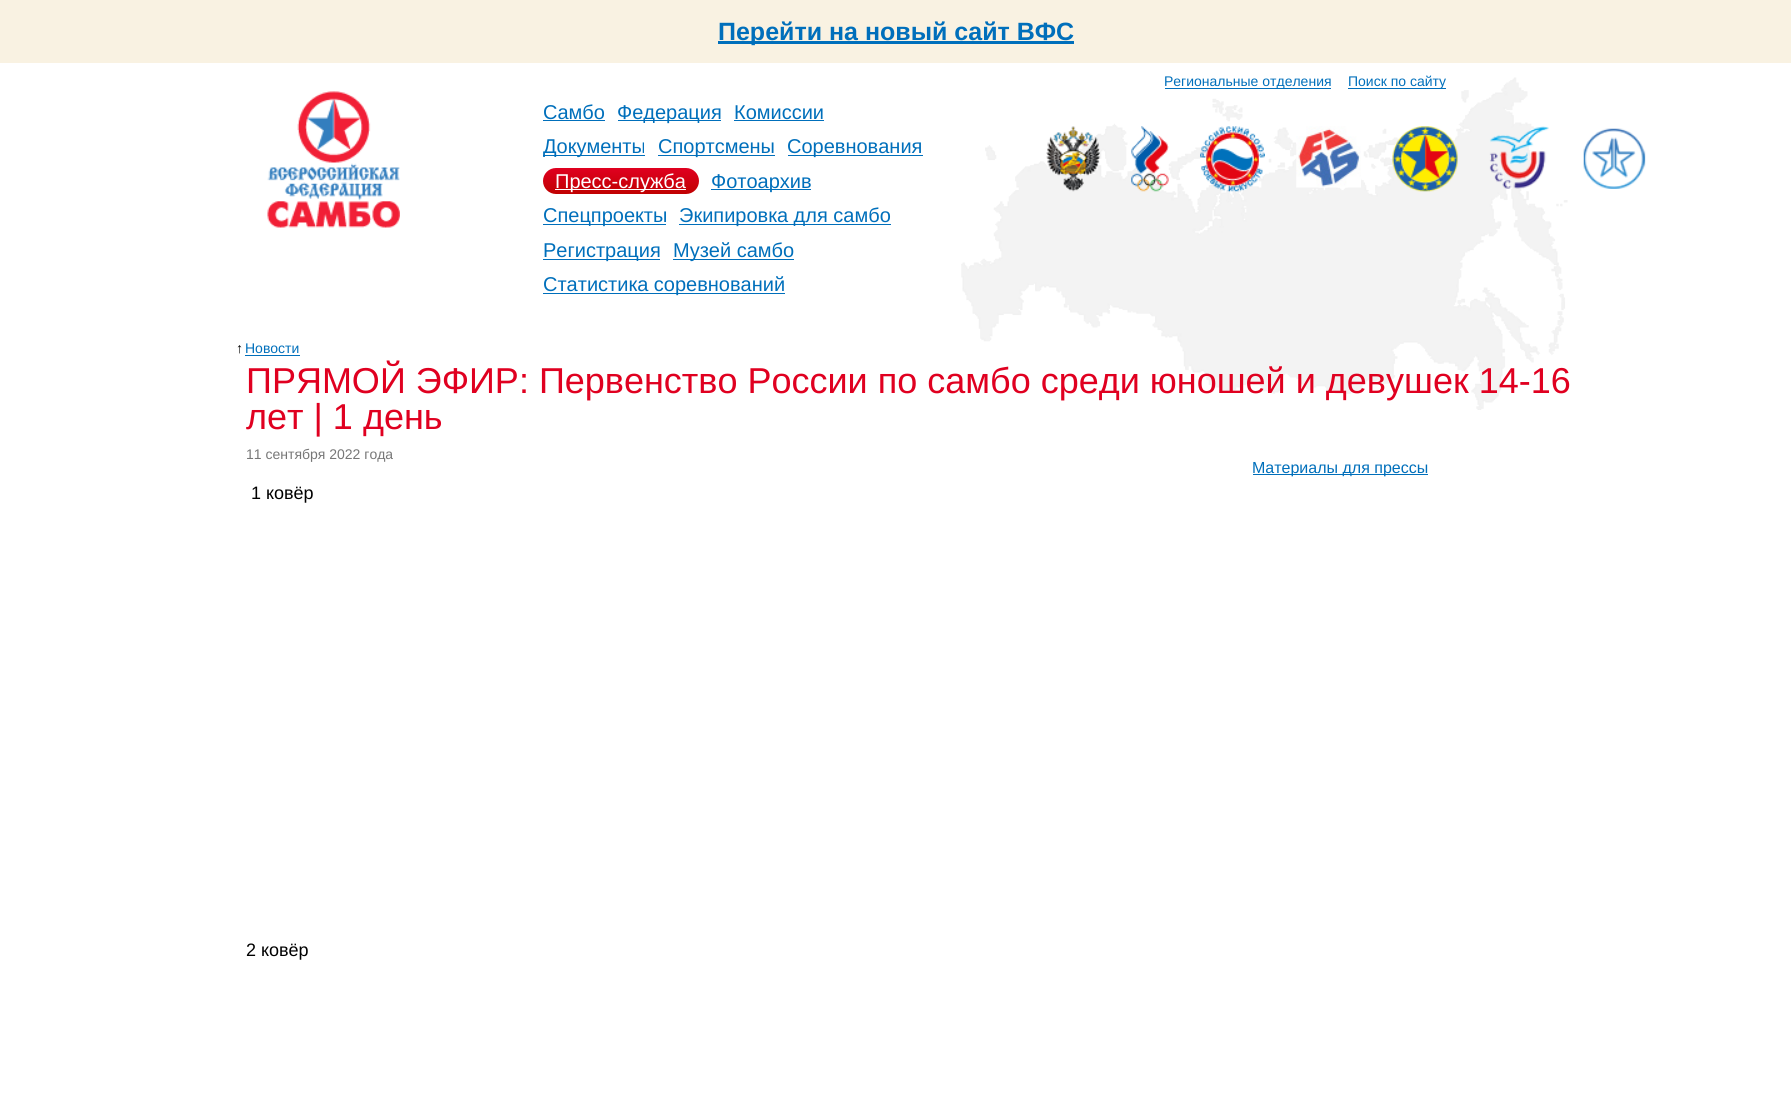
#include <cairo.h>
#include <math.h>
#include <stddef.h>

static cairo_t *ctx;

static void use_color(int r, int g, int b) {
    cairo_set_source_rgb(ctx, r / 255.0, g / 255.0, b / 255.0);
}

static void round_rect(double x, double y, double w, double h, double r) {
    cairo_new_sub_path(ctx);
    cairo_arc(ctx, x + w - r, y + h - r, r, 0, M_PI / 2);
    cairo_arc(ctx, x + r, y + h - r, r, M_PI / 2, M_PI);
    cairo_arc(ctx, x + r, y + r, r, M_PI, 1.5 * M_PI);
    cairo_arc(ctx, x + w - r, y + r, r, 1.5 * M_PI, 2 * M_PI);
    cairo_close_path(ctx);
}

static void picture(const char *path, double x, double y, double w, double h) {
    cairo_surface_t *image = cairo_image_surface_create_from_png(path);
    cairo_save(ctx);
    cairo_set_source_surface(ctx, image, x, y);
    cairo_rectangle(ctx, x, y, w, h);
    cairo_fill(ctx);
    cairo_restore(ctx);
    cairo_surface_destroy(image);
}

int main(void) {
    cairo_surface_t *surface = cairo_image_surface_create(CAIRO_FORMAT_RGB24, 1791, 1103);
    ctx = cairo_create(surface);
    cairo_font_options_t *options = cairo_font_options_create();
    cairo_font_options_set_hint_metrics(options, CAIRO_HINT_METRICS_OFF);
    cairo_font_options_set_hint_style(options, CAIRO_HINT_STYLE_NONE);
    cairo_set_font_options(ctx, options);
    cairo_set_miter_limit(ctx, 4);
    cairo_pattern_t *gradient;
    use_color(255, 255, 255);
    cairo_paint(ctx);
    use_color(249, 242, 226);
    cairo_rectangle(ctx, 0, 0, 1791, 63);
    cairo_fill(ctx);
    use_color(0, 111, 187);
    cairo_rectangle(ctx, 718, 41, 356, 3);
    cairo_fill(ctx);
    cairo_select_font_face(ctx, "Liberation Sans", CAIRO_FONT_SLANT_NORMAL, CAIRO_FONT_WEIGHT_BOLD);
    cairo_set_font_size(ctx, 25);
    cairo_move_to(ctx, 718, 40);
    cairo_show_text(ctx, "Перейти на новый сайт ВФС");
    picture("img1.png", 961, 77, 607, 333);
    cairo_rectangle(ctx, 1165, 88, 166, 1);
    cairo_fill(ctx);
    cairo_select_font_face(ctx, "Liberation Sans", CAIRO_FONT_SLANT_NORMAL, CAIRO_FONT_WEIGHT_NORMAL);
    cairo_set_font_size(ctx, 14);
    cairo_move_to(ctx, 1164, 86);
    cairo_show_text(ctx, "Региональные отделения");
    cairo_rectangle(ctx, 1348, 88, 98, 1);
    cairo_fill(ctx);
    cairo_move_to(ctx, 1348, 86);
    cairo_show_text(ctx, "Поиск по сайту");
    picture("img2.png", 267, 91, 133, 137);
    cairo_set_font_size(ctx, 20);
    cairo_move_to(ctx, 543, 119);
    cairo_show_text(ctx, "Самбо");
    cairo_rectangle(ctx, 543, 120, 62, 1);
    cairo_fill(ctx);
    cairo_rectangle(ctx, 618, 120, 103, 1);
    cairo_fill(ctx);
    cairo_move_to(ctx, 617, 119);
    cairo_show_text(ctx, "Федерация");
    cairo_move_to(ctx, 734, 119);
    cairo_show_text(ctx, "Комиссии");
    cairo_rectangle(ctx, 734, 120, 90, 1);
    cairo_fill(ctx);
    cairo_rectangle(ctx, 543, 155, 102, 1);
    cairo_fill(ctx);
    cairo_move_to(ctx, 543, 153);
    cairo_show_text(ctx, "Документы");
    cairo_rectangle(ctx, 658, 155, 117, 1);
    cairo_fill(ctx);
    cairo_move_to(ctx, 658, 153);
    cairo_show_text(ctx, "Спортсмены");
    cairo_rectangle(ctx, 788, 155, 135, 1);
    cairo_fill(ctx);
    cairo_move_to(ctx, 787, 153);
    cairo_show_text(ctx, "Соревнования");
    gradient = cairo_pattern_create_linear(543, 168, 543, 194);
    cairo_pattern_add_color_stop_rgba(gradient, 0, 0.878, 0, 0.125, 1);
    cairo_pattern_add_color_stop_rgba(gradient, 1, 0.753, 0.004, 0.004, 1);
    cairo_set_source(ctx, gradient);
    cairo_pattern_destroy(gradient);
    round_rect(543, 168, 156, 26, 13);
    cairo_fill(ctx);
    use_color(255, 255, 255);
    cairo_rectangle(ctx, 555, 189, 131, 1);
    cairo_fill(ctx);
    cairo_move_to(ctx, 555, 188);
    cairo_show_text(ctx, "Пресс-служба");
    use_color(0, 111, 187);
    cairo_rectangle(ctx, 711, 189, 100, 1);
    cairo_fill(ctx);
    cairo_move_to(ctx, 711, 188);
    cairo_show_text(ctx, "Фотоархив");
    cairo_rectangle(ctx, 543, 224, 123, 1);
    cairo_fill(ctx);
    cairo_move_to(ctx, 543, 222);
    cairo_show_text(ctx, "Спецпроекты");
    cairo_rectangle(ctx, 679, 224, 212, 1);
    cairo_fill(ctx);
    cairo_move_to(ctx, 679, 222);
    cairo_show_text(ctx, "Экипировка для самбо");
    cairo_rectangle(ctx, 543, 259, 117, 1);
    cairo_fill(ctx);
    cairo_move_to(ctx, 543, 257);
    cairo_show_text(ctx, "Регистрация");
    cairo_rectangle(ctx, 673, 259, 121, 1);
    cairo_fill(ctx);
    cairo_move_to(ctx, 673, 257);
    cairo_show_text(ctx, "Музей самбо");
    cairo_rectangle(ctx, 543, 293, 242, 1);
    cairo_fill(ctx);
    cairo_move_to(ctx, 543, 291);
    cairo_show_text(ctx, "Статистика соревнований");
    picture("img3.png", 1046, 126, 54, 66);
    picture("img4.png", 1131, 126, 38, 66);
    picture("img5.png", 1200, 126, 65, 66);
    picture("img6.png", 1296, 126, 65, 62);
    picture("img7.png", 1392, 126, 66, 66);
    picture("img8.png", 1489, 126, 60, 63);
    picture("img9.png", 1583, 128, 63, 61);
    cairo_set_font_size(ctx, 14);
    use_color(0, 0, 0);
    cairo_move_to(ctx, 236, 353);
    cairo_show_text(ctx, "↑");
    use_color(0, 111, 187);
    cairo_move_to(ctx, 245, 353);
    cairo_show_text(ctx, "Новости");
    cairo_rectangle(ctx, 245, 355, 55, 1);
    cairo_fill(ctx);
    cairo_set_font_size(ctx, 36);
    use_color(224, 0, 32);
    cairo_move_to(ctx, 246, 393);
    cairo_show_text(ctx, "ПРЯМОЙ ЭФИР: Первенство России по самбо среди юношей и девушек 14-16");
    cairo_move_to(ctx, 246, 429);
    cairo_show_text(ctx, "лет | 1 день");
    cairo_set_font_size(ctx, 14);
    use_color(119, 119, 119);
    cairo_move_to(ctx, 246, 459);
    cairo_show_text(ctx, "11 сентября 2022 года");
    cairo_set_font_size(ctx, 18);
    use_color(0, 0, 0);
    cairo_move_to(ctx, 251, 499);
    cairo_show_text(ctx, "1 ковёр");
    cairo_move_to(ctx, 246, 956);
    cairo_show_text(ctx, "2 ковёр");
    use_color(0, 111, 187);
    cairo_rectangle(ctx, 1253, 474, 175, 1);
    cairo_fill(ctx);
    cairo_set_font_size(ctx, 16);
    cairo_move_to(ctx, 1252, 473);
    cairo_show_text(ctx, "Материалы для прессы");
    cairo_surface_write_to_png(surface, "result.png");
    cairo_font_options_destroy(options);
    cairo_destroy(ctx);
    cairo_surface_destroy(surface);
    return 0;
}
